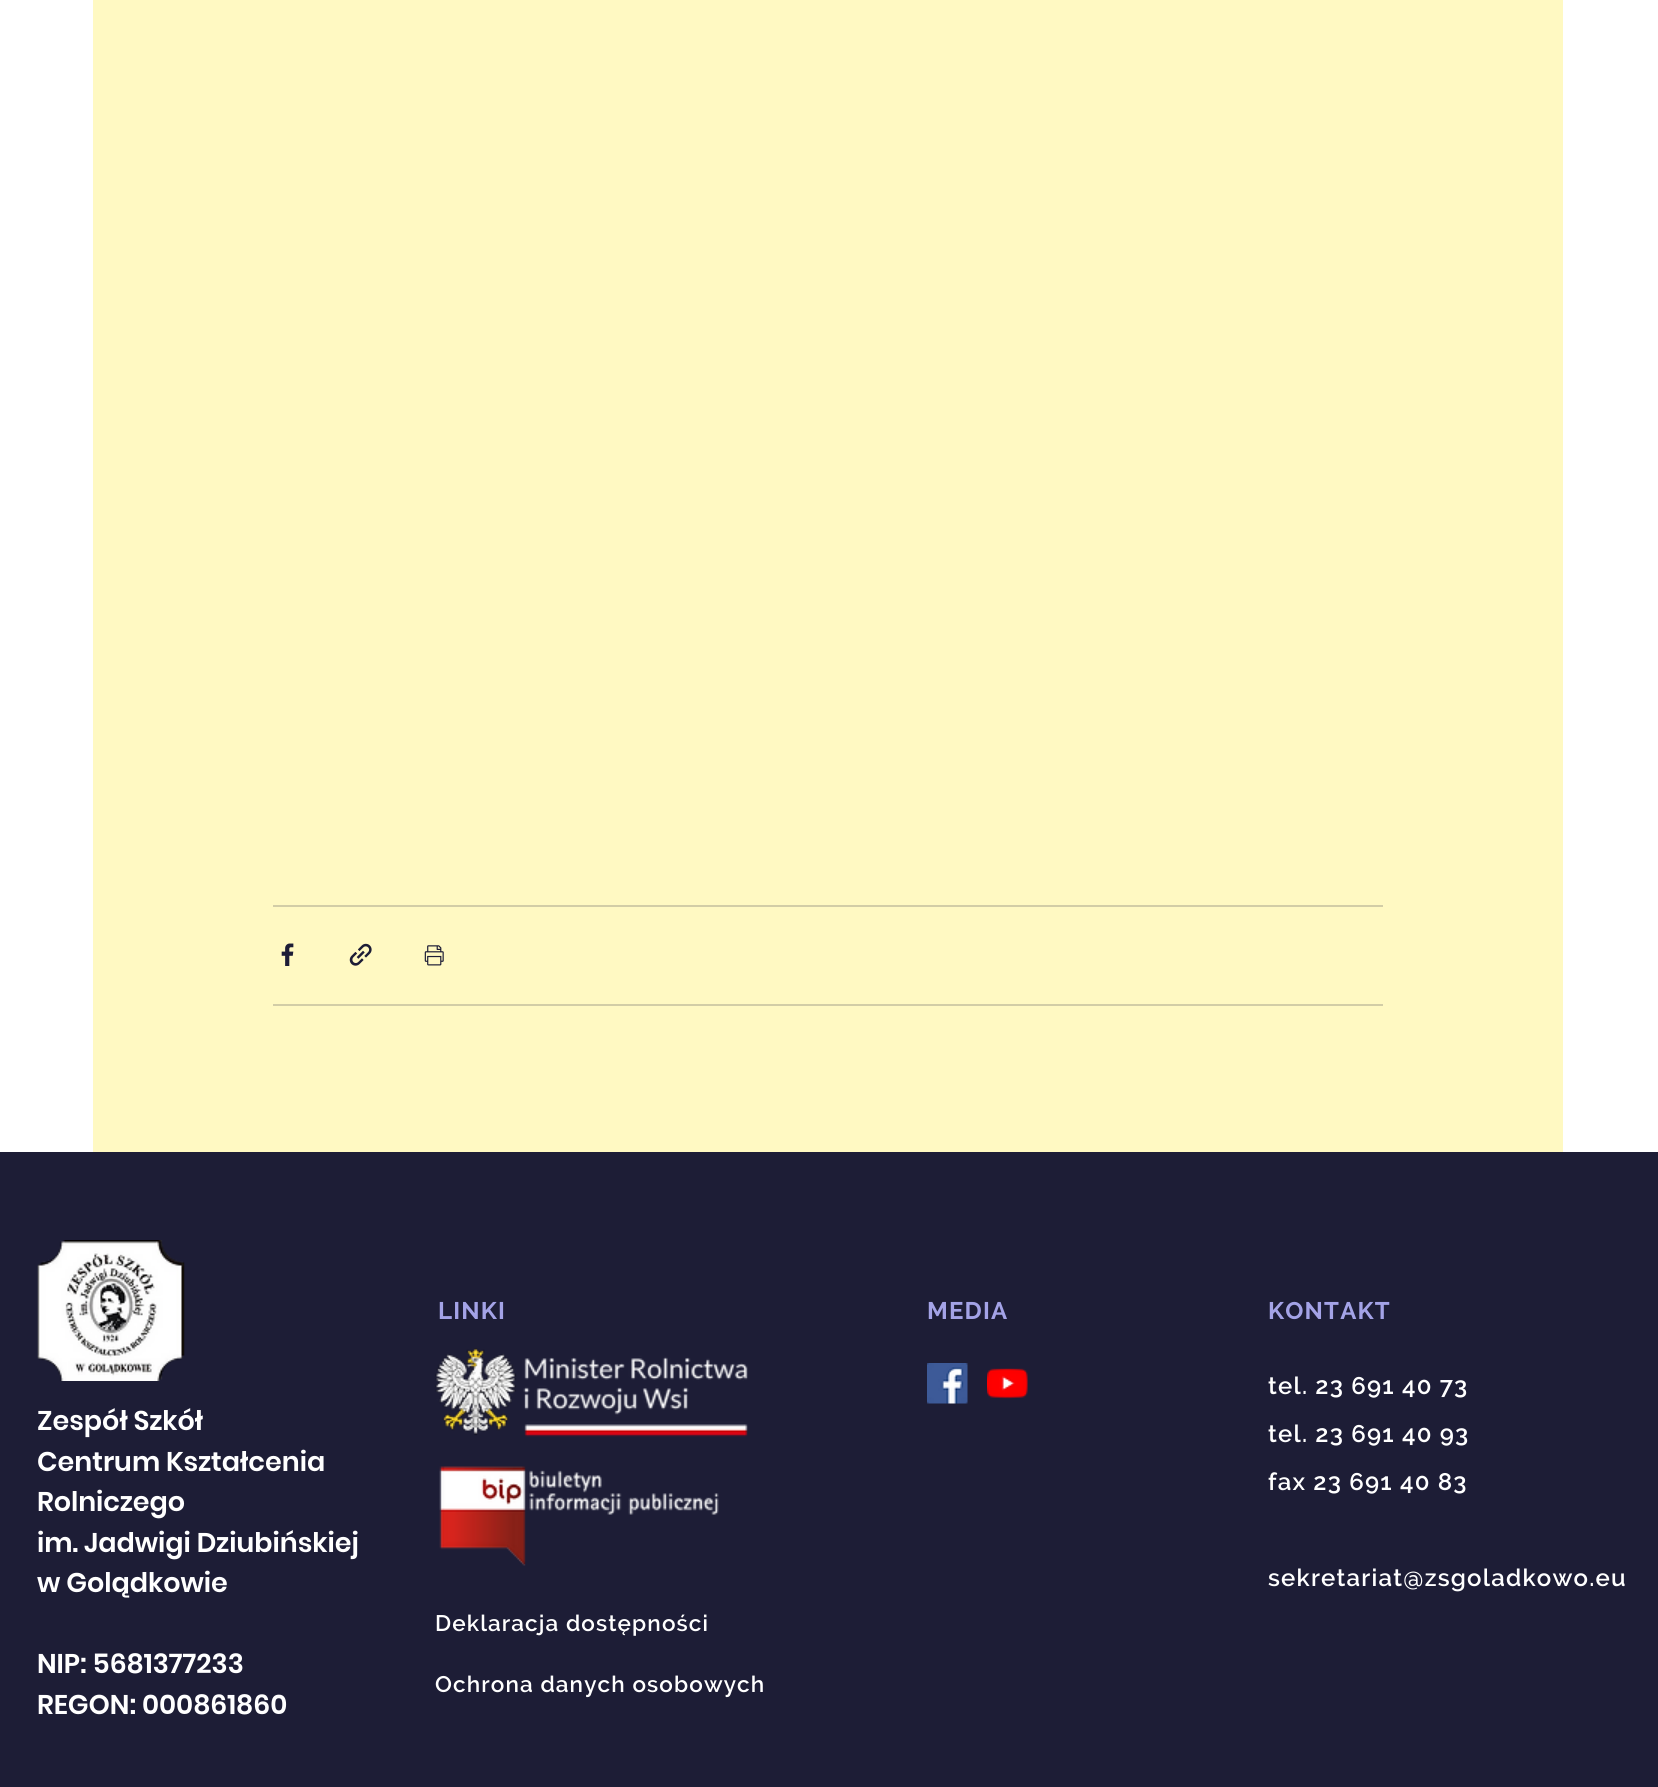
#include <cairo.h>
#include <math.h>
#include <stddef.h>

static cairo_t *ctx;

static void use_color(int r, int g, int b) {
    cairo_set_source_rgb(ctx, r / 255.0, g / 255.0, b / 255.0);
}

static void spaced_text(double x, double y, const char *s, double letter, double word) {
    cairo_move_to(ctx, x, y);
    while (*s) {
        char ch[5] = {0};
        int n = 0;
        do ch[n++] = *s++; while ((*s & 0xC0) == 0x80);
        cairo_show_text(ctx, ch);
        cairo_rel_move_to(ctx, letter + word * (*ch == ' '), 0);
    }
}

static void picture(const char *path, double x, double y, double w, double h) {
    cairo_surface_t *image = cairo_image_surface_create_from_png(path);
    cairo_save(ctx);
    cairo_set_source_surface(ctx, image, x, y);
    cairo_rectangle(ctx, x, y, w, h);
    cairo_fill(ctx);
    cairo_restore(ctx);
    cairo_surface_destroy(image);
}

int main(void) {
    cairo_surface_t *surface = cairo_image_surface_create(CAIRO_FORMAT_RGB24, 1658, 1787);
    ctx = cairo_create(surface);
    cairo_font_options_t *options = cairo_font_options_create();
    cairo_font_options_set_hint_metrics(options, CAIRO_HINT_METRICS_OFF);
    cairo_font_options_set_hint_style(options, CAIRO_HINT_STYLE_NONE);
    cairo_set_font_options(ctx, options);
    cairo_set_miter_limit(ctx, 4);
    use_color(255, 255, 255);
    cairo_paint(ctx);
    use_color(255, 249, 194);
    cairo_rectangle(ctx, 93, 0, 1470, 1152);
    cairo_fill(ctx);
    use_color(210, 205, 166);
    cairo_rectangle(ctx, 273, 905, 1110, 2);
    cairo_fill(ctx);
    picture("img1.png", 281, 943, 13, 23);
    picture("img2.png", 349, 943, 23, 23);
    picture("img3.png", 424, 945, 20, 21);
    cairo_rectangle(ctx, 273, 1004, 1110, 2);
    cairo_fill(ctx);
    use_color(29, 29, 54);
    cairo_rectangle(ctx, 0, 1152, 1658, 635);
    cairo_fill(ctx);
    picture("img4.png", 37, 1240, 148, 141);
    cairo_select_font_face(ctx, "Poppins SemiBold", CAIRO_FONT_SLANT_NORMAL, CAIRO_FONT_WEIGHT_NORMAL);
    cairo_set_font_size(ctx, 27);
    use_color(255, 255, 255);
    cairo_move_to(ctx, 37, 1430);
    cairo_show_text(ctx, "Zespół Szkół");
    cairo_move_to(ctx, 37, 1471);
    cairo_show_text(ctx, "Centrum Kształcenia");
    cairo_move_to(ctx, 37, 1511);
    cairo_show_text(ctx, "Rolniczego");
    cairo_move_to(ctx, 37, 1552);
    cairo_show_text(ctx, "im. Jadwigi Dziubińskiej");
    cairo_move_to(ctx, 37, 1592);
    cairo_show_text(ctx, "w Golądkowie");
    cairo_move_to(ctx, 37, 1673);
    cairo_show_text(ctx, "NIP: 5681377233");
    cairo_move_to(ctx, 37, 1714);
    cairo_show_text(ctx, "REGON: 000861860");
    cairo_select_font_face(ctx, "Raleway", CAIRO_FONT_SLANT_NORMAL, CAIRO_FONT_WEIGHT_BOLD);
    cairo_set_font_size(ctx, 24);
    use_color(164, 163, 231);
    spaced_text(438, 1319, "LINKI", 1.2, 0);
    picture("img5.png", 435, 1348, 313, 89);
    picture("img6.png", 439, 1466, 280, 100);
    cairo_select_font_face(ctx, "Raleway SemiBold", CAIRO_FONT_SLANT_NORMAL, CAIRO_FONT_WEIGHT_NORMAL);
    cairo_set_font_size(ctx, 22.5);
    use_color(255, 255, 255);
    spaced_text(435, 1631, "Deklaracja dostępności", 1.1, 0);
    spaced_text(435, 1692, "Ochrona danych osobowych", 1.1, 0);
    cairo_select_font_face(ctx, "Raleway", CAIRO_FONT_SLANT_NORMAL, CAIRO_FONT_WEIGHT_BOLD);
    cairo_set_font_size(ctx, 24);
    use_color(164, 163, 231);
    spaced_text(927, 1319, "MEDIA", 1.2, 0);
    picture("img7.png", 927, 1363, 41, 41);
    picture("img8.png", 987, 1368, 41, 31);
    spaced_text(1268, 1319, "KONTAKT", 1.2, 0);
    cairo_select_font_face(ctx, "Raleway SemiBold", CAIRO_FONT_SLANT_NORMAL, CAIRO_FONT_WEIGHT_NORMAL);
    use_color(255, 255, 255);
    spaced_text(1268, 1394, "tel. 23 691 40 73", 1.2, 0);
    spaced_text(1268, 1442, "tel. 23 691 40 93", 1.2, 0);
    spaced_text(1268, 1490, "fax 23 691 40 83", 1.2, 0);
    spaced_text(1268, 1586, "sekretariat@zsgoladkowo.eu", 1.2, 0);
    cairo_surface_write_to_png(surface, "result.png");
    cairo_font_options_destroy(options);
    cairo_destroy(ctx);
    cairo_surface_destroy(surface);
    return 0;
}
